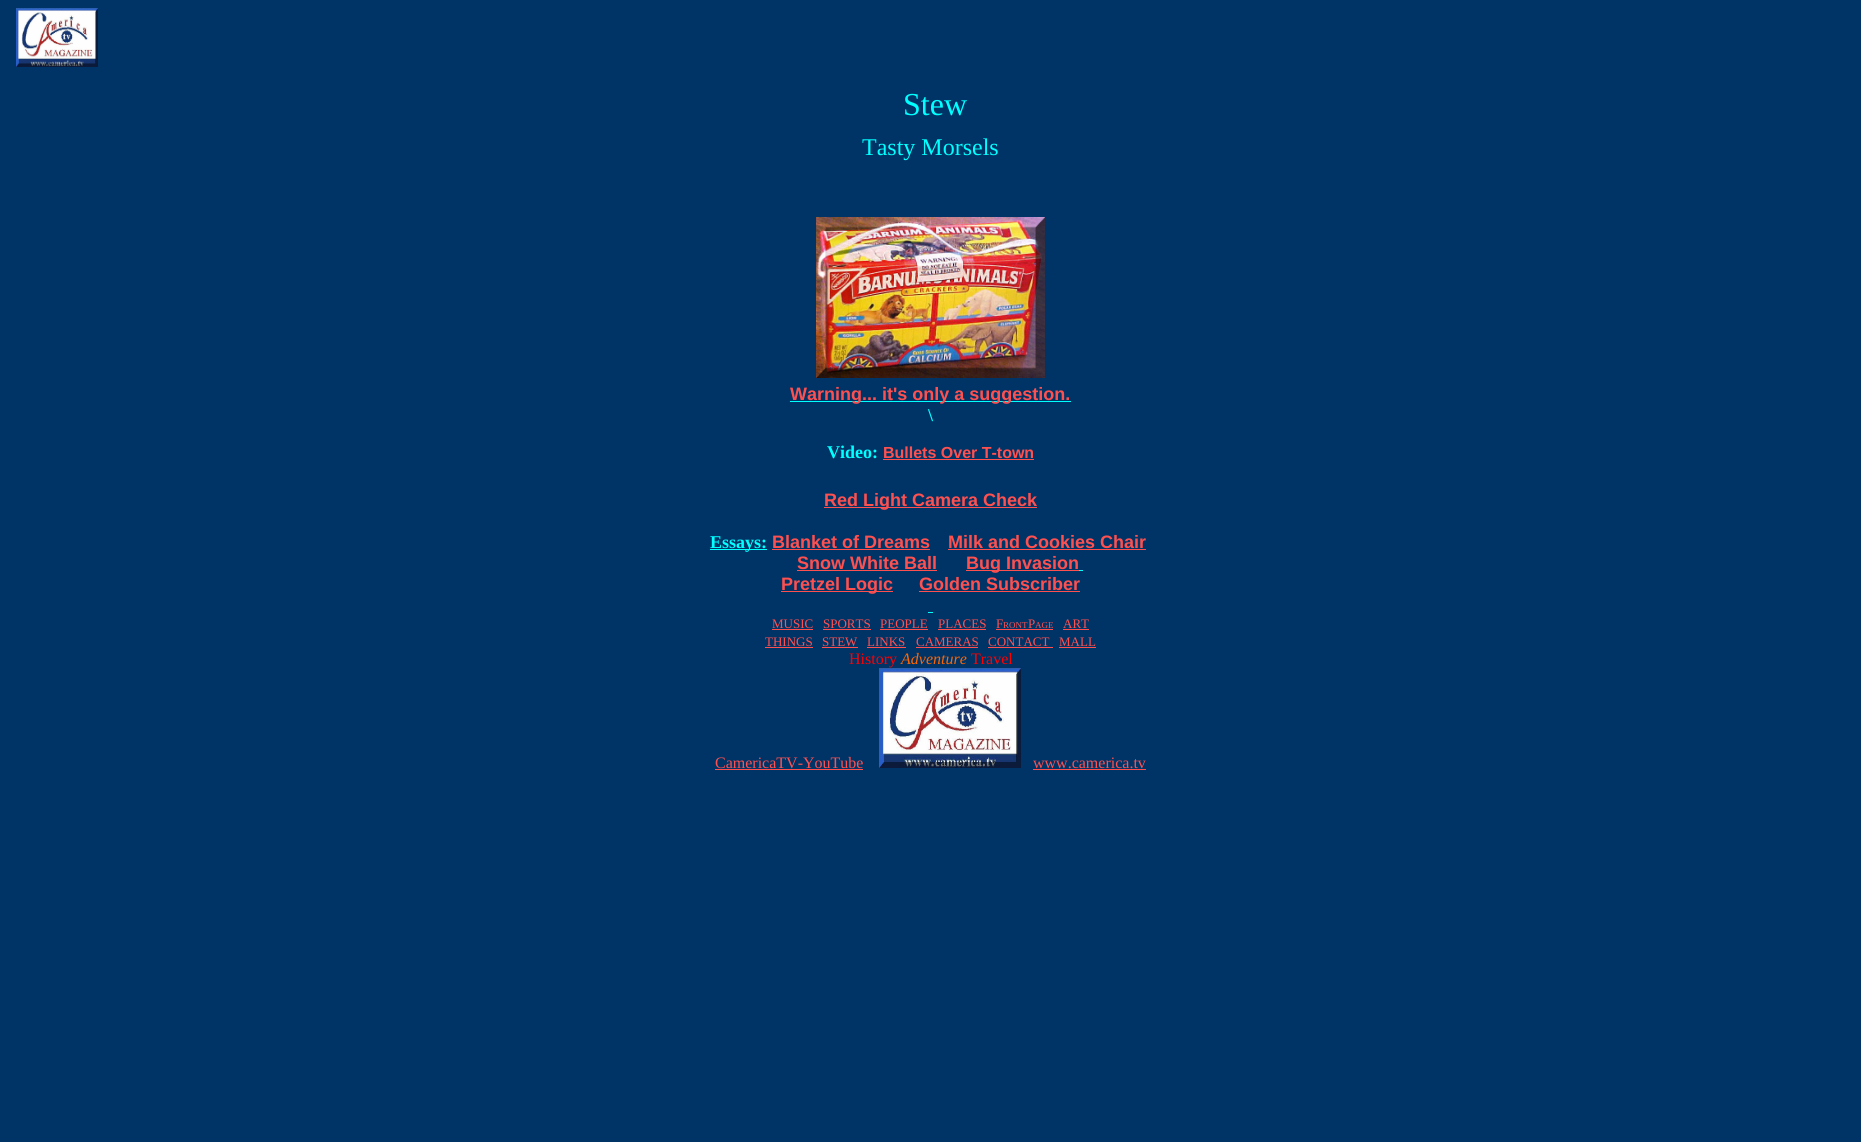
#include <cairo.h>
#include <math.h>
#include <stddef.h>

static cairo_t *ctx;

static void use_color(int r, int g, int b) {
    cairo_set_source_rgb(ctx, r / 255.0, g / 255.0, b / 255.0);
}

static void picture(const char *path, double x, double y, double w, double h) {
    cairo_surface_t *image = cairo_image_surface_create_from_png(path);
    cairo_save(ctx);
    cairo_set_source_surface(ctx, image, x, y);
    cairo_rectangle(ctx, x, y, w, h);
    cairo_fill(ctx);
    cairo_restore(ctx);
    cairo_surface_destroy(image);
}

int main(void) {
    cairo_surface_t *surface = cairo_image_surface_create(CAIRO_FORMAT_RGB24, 1861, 1142);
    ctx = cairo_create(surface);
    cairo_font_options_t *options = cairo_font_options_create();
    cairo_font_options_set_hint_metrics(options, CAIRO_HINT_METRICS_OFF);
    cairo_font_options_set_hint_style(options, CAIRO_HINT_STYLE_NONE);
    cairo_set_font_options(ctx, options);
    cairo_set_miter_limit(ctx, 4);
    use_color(0, 51, 102);
    cairo_paint(ctx);
    picture("img1.png", 16, 8, 82, 59);
    cairo_select_font_face(ctx, "Liberation Serif", CAIRO_FONT_SLANT_NORMAL, CAIRO_FONT_WEIGHT_NORMAL);
    cairo_set_font_size(ctx, 32);
    use_color(0, 255, 255);
    cairo_move_to(ctx, 903, 115);
    cairo_show_text(ctx, "Stew");
    cairo_set_font_size(ctx, 24);
    cairo_move_to(ctx, 862, 155);
    cairo_show_text(ctx, "Tasty Morsels");
    picture("img2.png", 816, 217, 229, 161);
    cairo_rectangle(ctx, 790, 401, 281, 1);
    cairo_fill(ctx);
    cairo_select_font_face(ctx, "Liberation Sans", CAIRO_FONT_SLANT_NORMAL, CAIRO_FONT_WEIGHT_BOLD);
    cairo_set_font_size(ctx, 18);
    use_color(255, 80, 80);
    cairo_move_to(ctx, 790, 400);
    cairo_show_text(ctx, "Warning... it's only a suggestion.");
    cairo_select_font_face(ctx, "Liberation Serif", CAIRO_FONT_SLANT_NORMAL, CAIRO_FONT_WEIGHT_BOLD);
    use_color(0, 255, 255);
    cairo_move_to(ctx, 928, 421);
    cairo_show_text(ctx, "\\");
    cairo_move_to(ctx, 827, 458);
    cairo_show_text(ctx, "Video:");
    cairo_select_font_face(ctx, "Liberation Sans", CAIRO_FONT_SLANT_NORMAL, CAIRO_FONT_WEIGHT_BOLD);
    cairo_set_font_size(ctx, 16);
    use_color(255, 80, 80);
    cairo_move_to(ctx, 883, 458);
    cairo_show_text(ctx, "Bullets Over T-town");
    cairo_rectangle(ctx, 883, 459, 151, 1);
    cairo_fill(ctx);
    cairo_rectangle(ctx, 824, 507, 213, 1);
    cairo_fill(ctx);
    cairo_set_font_size(ctx, 18);
    cairo_move_to(ctx, 824, 506);
    cairo_show_text(ctx, "Red Light Camera Check");
    use_color(0, 255, 255);
    cairo_rectangle(ctx, 710, 549, 57, 1);
    cairo_fill(ctx);
    cairo_select_font_face(ctx, "Liberation Serif", CAIRO_FONT_SLANT_NORMAL, CAIRO_FONT_WEIGHT_BOLD);
    cairo_move_to(ctx, 710, 548);
    cairo_show_text(ctx, "Essays:");
    cairo_select_font_face(ctx, "Liberation Sans", CAIRO_FONT_SLANT_NORMAL, CAIRO_FONT_WEIGHT_BOLD);
    use_color(255, 80, 80);
    cairo_move_to(ctx, 772, 548);
    cairo_show_text(ctx, "Blanket of Dreams");
    cairo_rectangle(ctx, 772, 549, 158, 1);
    cairo_fill(ctx);
    cairo_move_to(ctx, 948, 548);
    cairo_show_text(ctx, "Milk and Cookies Chair");
    cairo_rectangle(ctx, 948, 549, 198, 1);
    cairo_fill(ctx);
    cairo_move_to(ctx, 797, 569);
    cairo_show_text(ctx, "Snow White Ball");
    cairo_rectangle(ctx, 797, 570, 140, 1);
    cairo_fill(ctx);
    cairo_rectangle(ctx, 966, 570, 113, 1);
    cairo_fill(ctx);
    cairo_move_to(ctx, 966, 569);
    cairo_show_text(ctx, "Bug Invasion");
    use_color(0, 255, 255);
    cairo_rectangle(ctx, 1079, 570, 4, 1);
    cairo_fill(ctx);
    use_color(255, 80, 80);
    cairo_rectangle(ctx, 781, 591, 112, 1);
    cairo_fill(ctx);
    cairo_move_to(ctx, 781, 590);
    cairo_show_text(ctx, "Pretzel Logic");
    cairo_move_to(ctx, 919, 590);
    cairo_show_text(ctx, "Golden Subscriber");
    cairo_rectangle(ctx, 919, 591, 161, 1);
    cairo_fill(ctx);
    use_color(0, 255, 255);
    cairo_rectangle(ctx, 928, 612, 5, 1);
    cairo_fill(ctx);
    cairo_select_font_face(ctx, "Liberation Serif", CAIRO_FONT_SLANT_NORMAL, CAIRO_FONT_WEIGHT_NORMAL);
    cairo_set_font_size(ctx, 13);
    use_color(255, 80, 80);
    cairo_move_to(ctx, 772, 628);
    cairo_show_text(ctx, "MUSIC");
    cairo_rectangle(ctx, 772, 629, 41, 1);
    cairo_fill(ctx);
    cairo_move_to(ctx, 823, 628);
    cairo_show_text(ctx, "SPORTS");
    cairo_rectangle(ctx, 823, 629, 48, 1);
    cairo_fill(ctx);
    cairo_move_to(ctx, 880, 628);
    cairo_show_text(ctx, "PEOPLE");
    cairo_rectangle(ctx, 880, 629, 48, 1);
    cairo_fill(ctx);
    cairo_move_to(ctx, 938, 628);
    cairo_show_text(ctx, "PLACES");
    cairo_rectangle(ctx, 938, 629, 48, 1);
    cairo_fill(ctx);
    cairo_move_to(ctx, 996, 628);
    cairo_show_text(ctx, "F");
    cairo_set_font_size(ctx, 9);
    cairo_move_to(ctx, 1003, 628);
    cairo_show_text(ctx, "RONT");
    cairo_rectangle(ctx, 996, 629, 57, 1);
    cairo_fill(ctx);
    cairo_set_font_size(ctx, 13);
    cairo_move_to(ctx, 1028, 628);
    cairo_show_text(ctx, "P");
    cairo_set_font_size(ctx, 9);
    cairo_move_to(ctx, 1035, 628);
    cairo_show_text(ctx, "AGE");
    cairo_set_font_size(ctx, 13);
    cairo_move_to(ctx, 1063, 628);
    cairo_show_text(ctx, "ART");
    cairo_rectangle(ctx, 1063, 629, 26, 1);
    cairo_fill(ctx);
    cairo_move_to(ctx, 765, 646);
    cairo_show_text(ctx, "THINGS");
    cairo_rectangle(ctx, 765, 647, 48, 1);
    cairo_fill(ctx);
    cairo_move_to(ctx, 822, 646);
    cairo_show_text(ctx, "STEW");
    cairo_rectangle(ctx, 822, 647, 36, 1);
    cairo_fill(ctx);
    cairo_move_to(ctx, 867, 646);
    cairo_show_text(ctx, "LINKS");
    cairo_rectangle(ctx, 867, 647, 39, 1);
    cairo_fill(ctx);
    cairo_move_to(ctx, 916, 646);
    cairo_show_text(ctx, "CAMERAS");
    cairo_rectangle(ctx, 916, 647, 62, 1);
    cairo_fill(ctx);
    cairo_move_to(ctx, 988, 646);
    cairo_show_text(ctx, "CONTACT");
    cairo_rectangle(ctx, 988, 647, 65, 1);
    cairo_fill(ctx);
    cairo_move_to(ctx, 1059, 646);
    cairo_show_text(ctx, "MALL");
    cairo_rectangle(ctx, 1059, 647, 37, 1);
    cairo_fill(ctx);
    cairo_set_font_size(ctx, 16);
    use_color(255, 0, 0);
    cairo_move_to(ctx, 849, 664);
    cairo_show_text(ctx, "History");
    cairo_select_font_face(ctx, "Liberation Serif", CAIRO_FONT_SLANT_ITALIC, CAIRO_FONT_WEIGHT_NORMAL);
    use_color(255, 102, 0);
    cairo_move_to(ctx, 901, 664);
    cairo_show_text(ctx, "Adventure");
    cairo_select_font_face(ctx, "Liberation Serif", CAIRO_FONT_SLANT_NORMAL, CAIRO_FONT_WEIGHT_NORMAL);
    use_color(255, 0, 0);
    cairo_move_to(ctx, 971, 664);
    cairo_show_text(ctx, "Travel");
    use_color(255, 80, 80);
    cairo_move_to(ctx, 715, 768);
    cairo_show_text(ctx, "CamericaTV-YouTube");
    cairo_rectangle(ctx, 715, 769, 148, 1);
    cairo_fill(ctx);
    picture("img3.png", 879, 668, 142, 100);
    cairo_move_to(ctx, 1033, 768);
    cairo_show_text(ctx, "www.camerica.tv");
    cairo_rectangle(ctx, 1033, 769, 113, 1);
    cairo_fill(ctx);
    cairo_surface_write_to_png(surface, "result.png");
    cairo_font_options_destroy(options);
    cairo_destroy(ctx);
    cairo_surface_destroy(surface);
    return 0;
}
